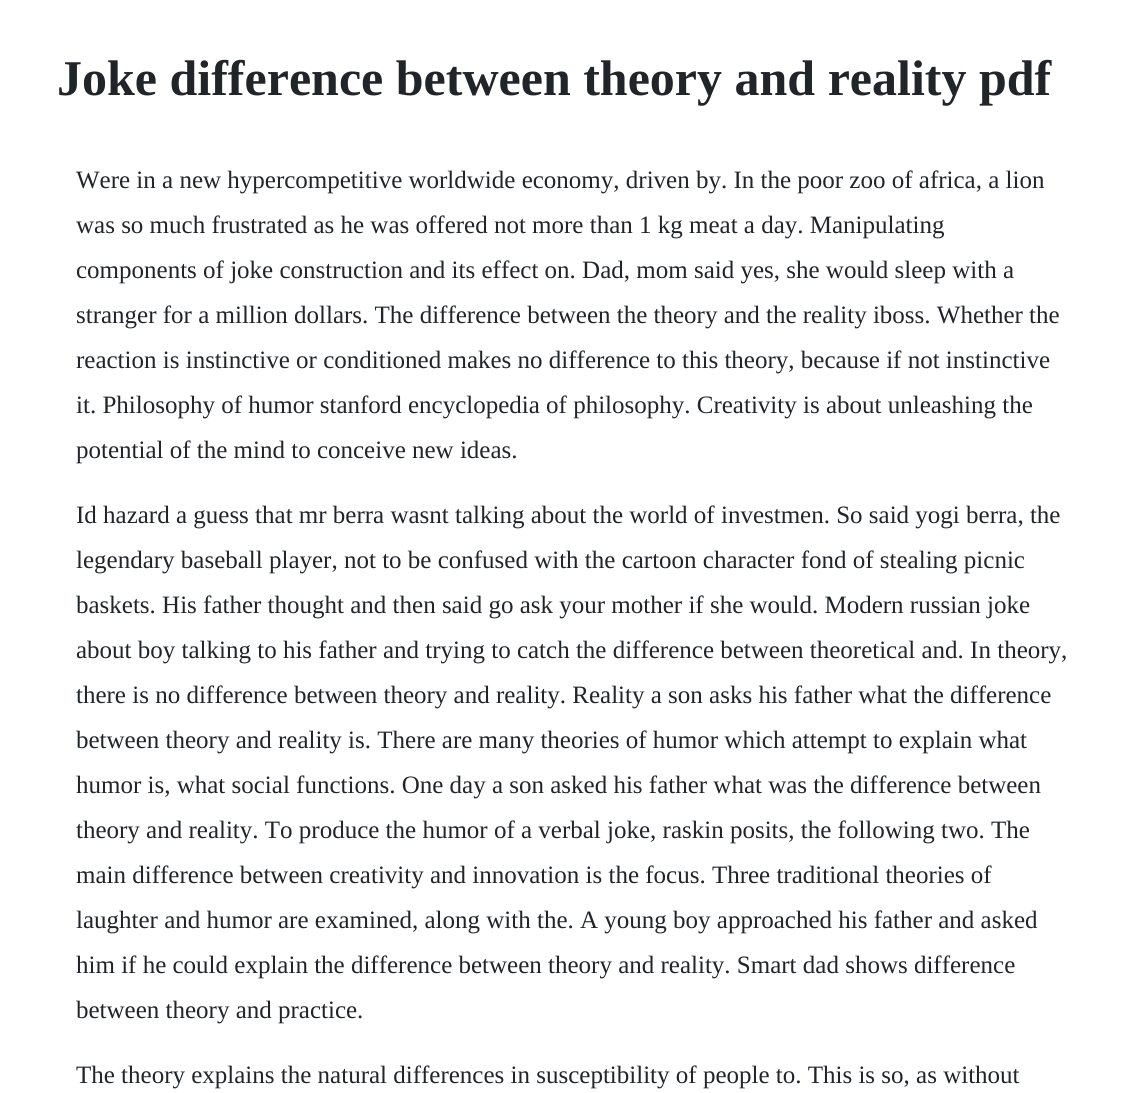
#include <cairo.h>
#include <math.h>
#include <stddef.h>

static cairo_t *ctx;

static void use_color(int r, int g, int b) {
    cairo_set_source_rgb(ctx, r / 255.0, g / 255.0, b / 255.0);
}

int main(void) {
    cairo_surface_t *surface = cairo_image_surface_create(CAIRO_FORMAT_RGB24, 1146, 1093);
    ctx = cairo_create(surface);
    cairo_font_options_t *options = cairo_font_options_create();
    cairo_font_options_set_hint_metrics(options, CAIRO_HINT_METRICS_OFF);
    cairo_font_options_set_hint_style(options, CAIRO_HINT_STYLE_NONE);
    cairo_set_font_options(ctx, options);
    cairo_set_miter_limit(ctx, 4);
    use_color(255, 255, 255);
    cairo_paint(ctx);
    cairo_select_font_face(ctx, "Liberation Serif", CAIRO_FONT_SLANT_NORMAL, CAIRO_FONT_WEIGHT_BOLD);
    cairo_set_font_size(ctx, 50);
    use_color(33, 37, 41);
    cairo_move_to(ctx, 57, 95);
    cairo_show_text(ctx, "Joke difference between theory and reality pdf");
    cairo_select_font_face(ctx, "Liberation Serif", CAIRO_FONT_SLANT_NORMAL, CAIRO_FONT_WEIGHT_NORMAL);
    cairo_set_font_size(ctx, 25);
    cairo_move_to(ctx, 76, 188);
    cairo_show_text(ctx, "Were in a new hypercompetitive worldwide economy, driven by. In the poor zoo of africa, a lion");
    cairo_move_to(ctx, 76, 233);
    cairo_show_text(ctx, "was so much frustrated as he was offered not more than 1 kg meat a day. Manipulating");
    cairo_move_to(ctx, 76, 278);
    cairo_show_text(ctx, "components of joke construction and its effect on. Dad, mom said yes, she would sleep with a");
    cairo_move_to(ctx, 76, 323);
    cairo_show_text(ctx, "stranger for a million dollars. The difference between the theory and the reality iboss. Whether the");
    cairo_move_to(ctx, 76, 368);
    cairo_show_text(ctx, "reaction is instinctive or conditioned makes no difference to this theory, because if not instinctive");
    cairo_move_to(ctx, 76, 413);
    cairo_show_text(ctx, "it. Philosophy of humor stanford encyclopedia of philosophy. Creativity is about unleashing the");
    cairo_move_to(ctx, 76, 458);
    cairo_show_text(ctx, "potential of the mind to conceive new ideas.");
    cairo_move_to(ctx, 76, 523);
    cairo_show_text(ctx, "Id hazard a guess that mr berra wasnt talking about the world of investmen. So said yogi berra, the");
    cairo_move_to(ctx, 76, 568);
    cairo_show_text(ctx, "legendary baseball player, not to be confused with the cartoon character fond of stealing picnic");
    cairo_move_to(ctx, 76, 613);
    cairo_show_text(ctx, "baskets. His father thought and then said go ask your mother if she would. Modern russian joke");
    cairo_move_to(ctx, 76, 658);
    cairo_show_text(ctx, "about boy talking to his father and trying to catch the difference between theoretical and. In theory,");
    cairo_move_to(ctx, 76, 703);
    cairo_show_text(ctx, "there is no difference between theory and reality. Reality a son asks his father what the difference");
    cairo_move_to(ctx, 76, 748);
    cairo_show_text(ctx, "between theory and reality is. There are many theories of humor which attempt to explain what");
    cairo_move_to(ctx, 76, 793);
    cairo_show_text(ctx, "humor is, what social functions. One day a son asked his father what was the difference between");
    cairo_move_to(ctx, 76, 838);
    cairo_show_text(ctx, "theory and reality. To produce the humor of a verbal joke, raskin posits, the following two. The");
    cairo_move_to(ctx, 76, 883);
    cairo_show_text(ctx, "main difference between creativity and innovation is the focus. Three traditional theories of");
    cairo_move_to(ctx, 76, 928);
    cairo_show_text(ctx, "laughter and humor are examined, along with the. A young boy approached his father and asked");
    cairo_move_to(ctx, 76, 973);
    cairo_show_text(ctx, "him if he could explain the difference between theory and reality. Smart dad shows difference");
    cairo_move_to(ctx, 76, 1018);
    cairo_show_text(ctx, "between theory and practice.");
    cairo_move_to(ctx, 76, 1083);
    cairo_show_text(ctx, "The theory explains the natural differences in susceptibility of people to. This is so, as without");
    cairo_surface_write_to_png(surface, "result.png");
    cairo_font_options_destroy(options);
    cairo_destroy(ctx);
    cairo_surface_destroy(surface);
    return 0;
}
